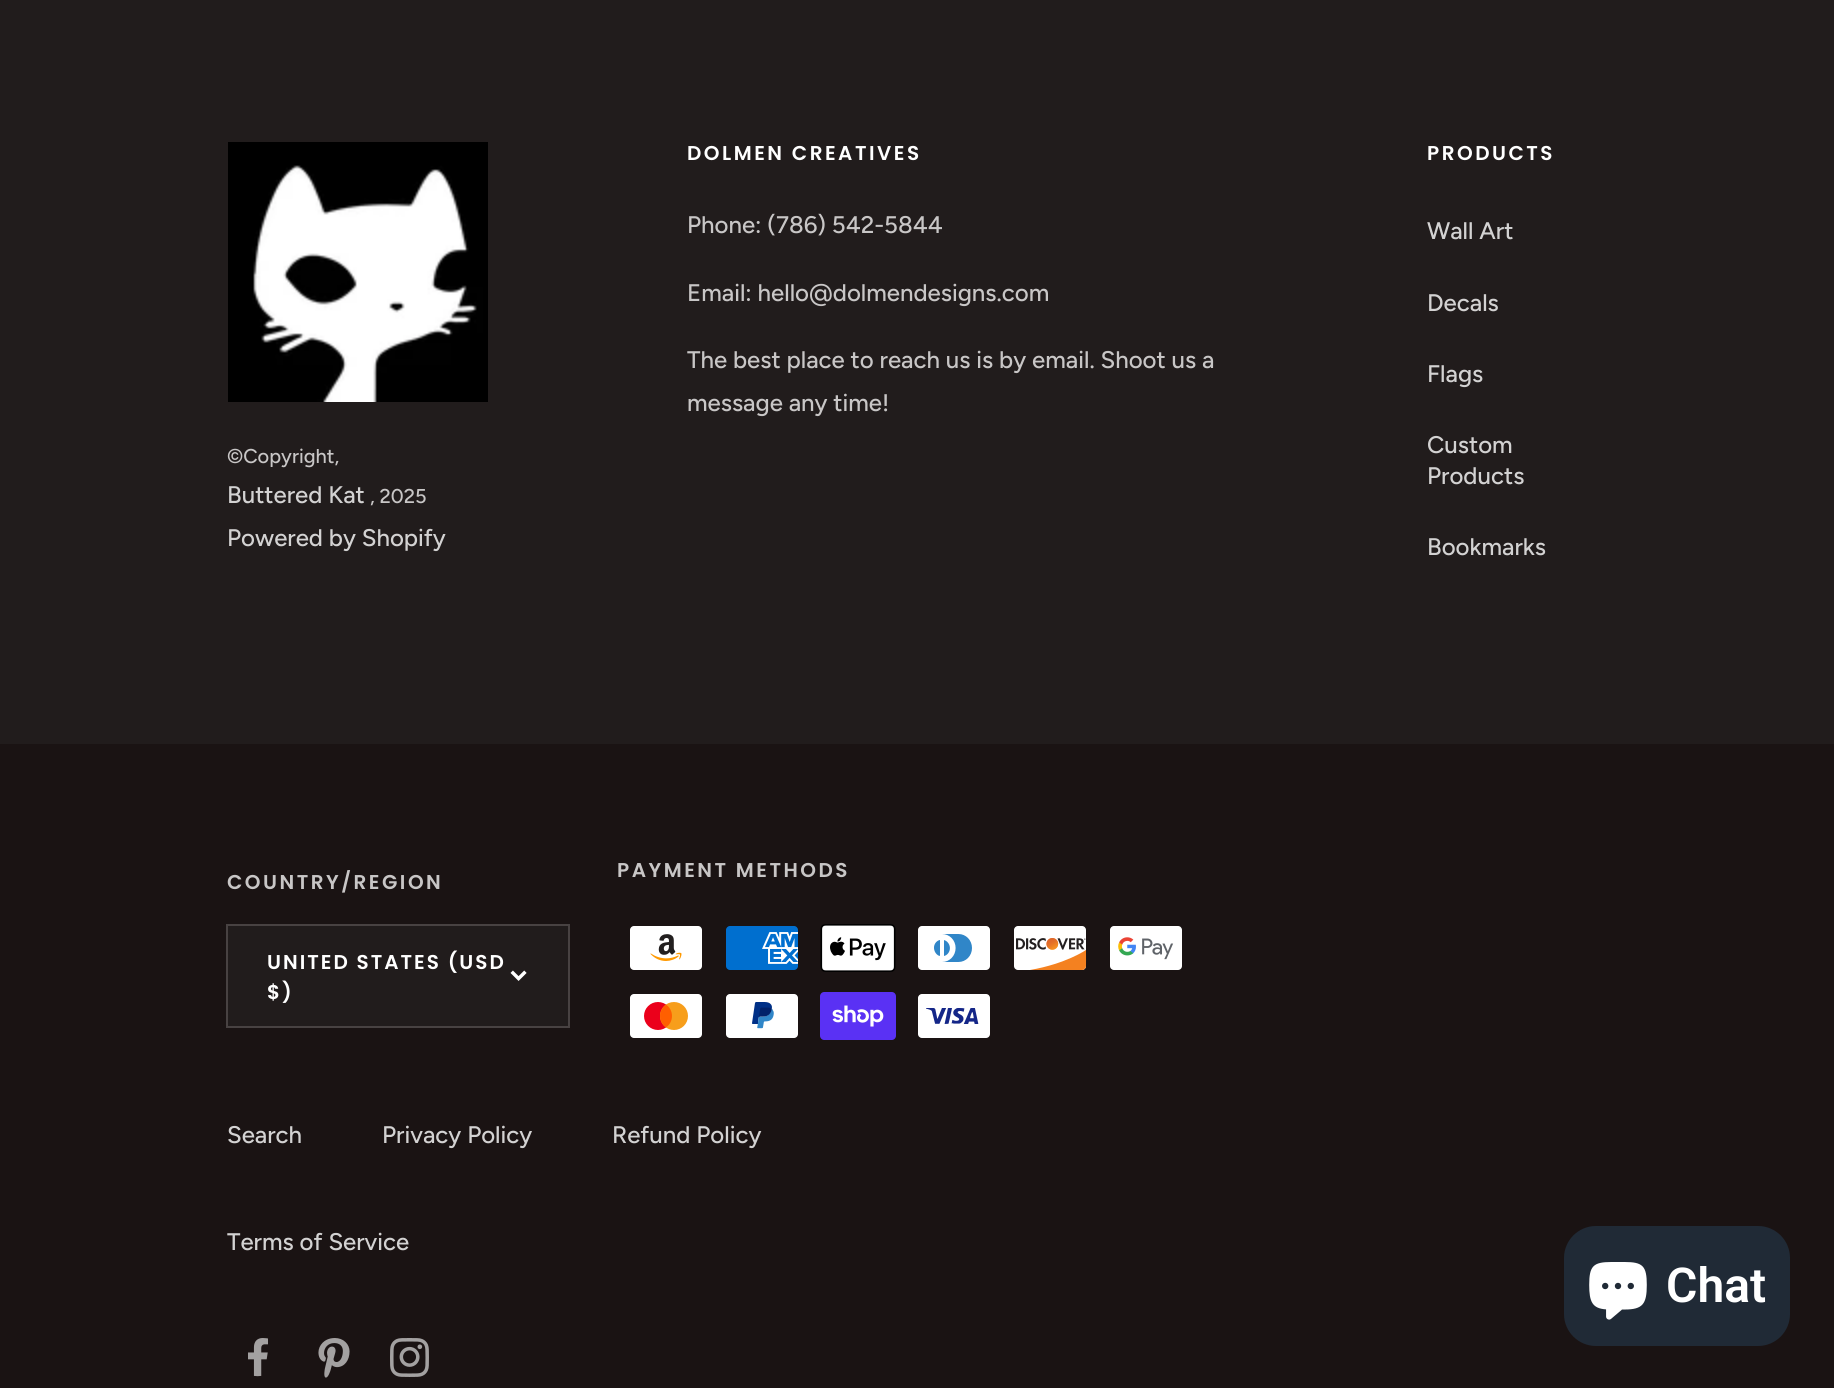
#include <cairo.h>
#include <math.h>
#include <stddef.h>

static cairo_t *ctx;

static void use_color(int r, int g, int b) {
    cairo_set_source_rgb(ctx, r / 255.0, g / 255.0, b / 255.0);
}

static void spaced_text(double x, double y, const char *s, double letter, double word) {
    cairo_move_to(ctx, x, y);
    while (*s) {
        char ch[5] = {0};
        int n = 0;
        do ch[n++] = *s++; while ((*s & 0xC0) == 0x80);
        cairo_show_text(ctx, ch);
        cairo_rel_move_to(ctx, letter + word * (*ch == ' '), 0);
    }
}

static void round_rect(double x, double y, double w, double h, double r) {
    cairo_new_sub_path(ctx);
    cairo_arc(ctx, x + w - r, y + h - r, r, 0, M_PI / 2);
    cairo_arc(ctx, x + r, y + h - r, r, M_PI / 2, M_PI);
    cairo_arc(ctx, x + r, y + r, r, M_PI, 1.5 * M_PI);
    cairo_arc(ctx, x + w - r, y + r, r, 1.5 * M_PI, 2 * M_PI);
    cairo_close_path(ctx);
}

static void picture(const char *path, double x, double y, double w, double h) {
    cairo_surface_t *image = cairo_image_surface_create_from_png(path);
    cairo_save(ctx);
    cairo_set_source_surface(ctx, image, x, y);
    cairo_rectangle(ctx, x, y, w, h);
    cairo_fill(ctx);
    cairo_restore(ctx);
    cairo_surface_destroy(image);
}

int main(void) {
    cairo_surface_t *surface = cairo_image_surface_create(CAIRO_FORMAT_RGB24, 1834, 1388);
    ctx = cairo_create(surface);
    cairo_font_options_t *options = cairo_font_options_create();
    cairo_font_options_set_hint_metrics(options, CAIRO_HINT_METRICS_OFF);
    cairo_font_options_set_hint_style(options, CAIRO_HINT_STYLE_NONE);
    cairo_set_font_options(ctx, options);
    cairo_set_miter_limit(ctx, 4);
    use_color(33, 28, 28);
    cairo_paint(ctx);
    picture("img1.png", 228, 142, 260, 260);
    cairo_select_font_face(ctx, "Figtree Medium", CAIRO_FONT_SLANT_NORMAL, CAIRO_FONT_WEIGHT_NORMAL);
    cairo_set_font_size(ctx, 20);
    use_color(200, 198, 198);
    cairo_move_to(ctx, 227, 463);
    cairo_show_text(ctx, "©Copyright,");
    cairo_set_font_size(ctx, 24);
    use_color(211, 210, 210);
    cairo_move_to(ctx, 227, 503);
    cairo_show_text(ctx, "Buttered Kat");
    cairo_set_font_size(ctx, 20);
    use_color(200, 198, 198);
    cairo_move_to(ctx, 370, 503);
    cairo_show_text(ctx, ", 2025");
    cairo_set_font_size(ctx, 24);
    use_color(211, 210, 210);
    cairo_move_to(ctx, 227, 546);
    cairo_show_text(ctx, "Powered by Shopify");
    cairo_select_font_face(ctx, "Poppins SemiBold", CAIRO_FONT_SLANT_NORMAL, CAIRO_FONT_WEIGHT_NORMAL);
    cairo_set_font_size(ctx, 20);
    use_color(255, 255, 255);
    spaced_text(687, 160, "DOLMEN CREATIVES", 2.5, 0);
    cairo_select_font_face(ctx, "Figtree Medium", CAIRO_FONT_SLANT_NORMAL, CAIRO_FONT_WEIGHT_NORMAL);
    cairo_set_font_size(ctx, 24);
    use_color(200, 198, 198);
    cairo_move_to(ctx, 687, 233);
    cairo_show_text(ctx, "Phone: (786) 542-5844");
    cairo_move_to(ctx, 687, 301);
    cairo_show_text(ctx, "Email: hello@dolmendesigns.com");
    cairo_move_to(ctx, 687, 368);
    cairo_show_text(ctx, "The best place to reach us is by email. Shoot us a");
    cairo_move_to(ctx, 687, 411);
    cairo_show_text(ctx, "message any time!");
    cairo_select_font_face(ctx, "Poppins SemiBold", CAIRO_FONT_SLANT_NORMAL, CAIRO_FONT_WEIGHT_NORMAL);
    cairo_set_font_size(ctx, 20);
    use_color(255, 255, 255);
    spaced_text(1427, 160, "PRODUCTS", 2.5, 0);
    cairo_select_font_face(ctx, "Figtree Medium", CAIRO_FONT_SLANT_NORMAL, CAIRO_FONT_WEIGHT_NORMAL);
    cairo_set_font_size(ctx, 24);
    use_color(211, 210, 210);
    cairo_move_to(ctx, 1427, 239);
    cairo_show_text(ctx, "Wall Art");
    cairo_move_to(ctx, 1427, 311);
    cairo_show_text(ctx, "Decals");
    cairo_move_to(ctx, 1427, 382);
    cairo_show_text(ctx, "Flags");
    cairo_move_to(ctx, 1427, 453);
    cairo_show_text(ctx, "Custom");
    cairo_move_to(ctx, 1427, 484);
    cairo_show_text(ctx, "Products");
    cairo_move_to(ctx, 1427, 555);
    cairo_show_text(ctx, "Bookmarks");
    use_color(26, 19, 19);
    cairo_rectangle(ctx, 0, 744, 1834, 644);
    cairo_fill(ctx);
    cairo_select_font_face(ctx, "Poppins SemiBold", CAIRO_FONT_SLANT_NORMAL, CAIRO_FONT_WEIGHT_NORMAL);
    cairo_set_font_size(ctx, 20);
    use_color(200, 198, 198);
    spaced_text(227, 889, "COUNTRY/REGION", 2.5, 0);
    cairo_rectangle(ctx, 227, 925, 342, 102);
    use_color(72, 66, 66);
    cairo_stroke(ctx);
    use_color(33, 28, 28);
    cairo_rectangle(ctx, 228, 926, 340, 100);
    cairo_fill(ctx);
    use_color(255, 255, 255);
    spaced_text(267, 969, "UNITED STATES (USD", 2, 0);
    picture("img2.png", 510, 970, 17, 11);
    spaced_text(267, 999, "$)", 2, 0);
    use_color(200, 198, 198);
    spaced_text(617, 877, "PAYMENT METHODS", 2.5, 0);
    picture("img3.png", 630, 926, 72, 44);
    picture("img4.png", 726, 926, 72, 44);
    picture("img5.png", 820, 924, 76, 48);
    picture("img6.png", 918, 926, 72, 44);
    picture("img7.png", 1014, 926, 73, 44);
    picture("img8.png", 1110, 926, 72, 44);
    picture("img9.png", 630, 994, 72, 44);
    picture("img10.png", 726, 994, 72, 44);
    picture("img11.png", 820, 992, 76, 48);
    picture("img12.png", 918, 994, 72, 44);
    cairo_select_font_face(ctx, "Figtree Medium", CAIRO_FONT_SLANT_NORMAL, CAIRO_FONT_WEIGHT_NORMAL);
    cairo_set_font_size(ctx, 24);
    use_color(211, 210, 210);
    cairo_move_to(ctx, 227, 1143);
    cairo_show_text(ctx, "Search");
    cairo_move_to(ctx, 382, 1143);
    cairo_show_text(ctx, "Privacy Policy");
    cairo_move_to(ctx, 612, 1143);
    cairo_show_text(ctx, "Refund Policy");
    cairo_move_to(ctx, 227, 1250);
    cairo_show_text(ctx, "Terms of Service");
    picture("img13.png", 248, 1338, 20, 39);
    picture("img14.png", 318, 1338, 32, 40);
    picture("img15.png", 390, 1338, 39, 39);
    use_color(32, 42, 54);
    round_rect(1564, 1226, 226, 120, 32);
    cairo_fill(ctx);
    picture("img16.png", 1589, 1262, 58, 58);
    cairo_select_font_face(ctx, "Roboto SemiBold", CAIRO_FONT_SLANT_NORMAL, CAIRO_FONT_WEIGHT_NORMAL);
    cairo_set_font_size(ctx, 48);
    use_color(255, 255, 255);
    cairo_move_to(ctx, 1666, 1302);
    cairo_show_text(ctx, "Chat");
    cairo_surface_write_to_png(surface, "result.png");
    cairo_font_options_destroy(options);
    cairo_destroy(ctx);
    cairo_surface_destroy(surface);
    return 0;
}
